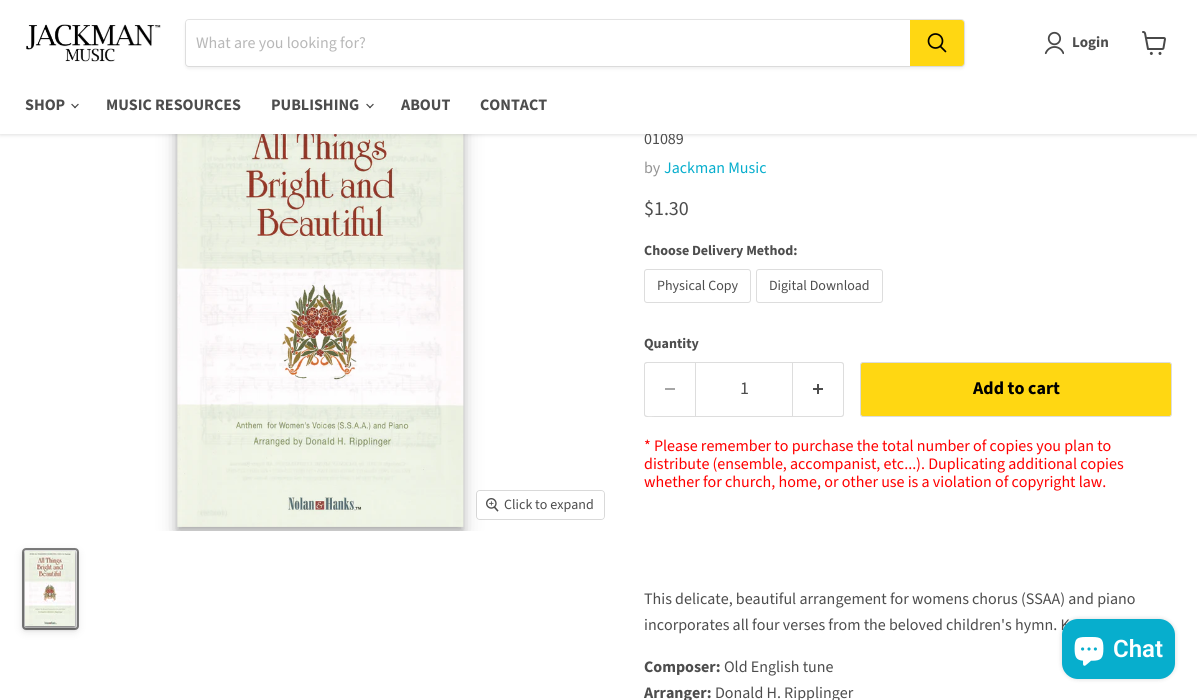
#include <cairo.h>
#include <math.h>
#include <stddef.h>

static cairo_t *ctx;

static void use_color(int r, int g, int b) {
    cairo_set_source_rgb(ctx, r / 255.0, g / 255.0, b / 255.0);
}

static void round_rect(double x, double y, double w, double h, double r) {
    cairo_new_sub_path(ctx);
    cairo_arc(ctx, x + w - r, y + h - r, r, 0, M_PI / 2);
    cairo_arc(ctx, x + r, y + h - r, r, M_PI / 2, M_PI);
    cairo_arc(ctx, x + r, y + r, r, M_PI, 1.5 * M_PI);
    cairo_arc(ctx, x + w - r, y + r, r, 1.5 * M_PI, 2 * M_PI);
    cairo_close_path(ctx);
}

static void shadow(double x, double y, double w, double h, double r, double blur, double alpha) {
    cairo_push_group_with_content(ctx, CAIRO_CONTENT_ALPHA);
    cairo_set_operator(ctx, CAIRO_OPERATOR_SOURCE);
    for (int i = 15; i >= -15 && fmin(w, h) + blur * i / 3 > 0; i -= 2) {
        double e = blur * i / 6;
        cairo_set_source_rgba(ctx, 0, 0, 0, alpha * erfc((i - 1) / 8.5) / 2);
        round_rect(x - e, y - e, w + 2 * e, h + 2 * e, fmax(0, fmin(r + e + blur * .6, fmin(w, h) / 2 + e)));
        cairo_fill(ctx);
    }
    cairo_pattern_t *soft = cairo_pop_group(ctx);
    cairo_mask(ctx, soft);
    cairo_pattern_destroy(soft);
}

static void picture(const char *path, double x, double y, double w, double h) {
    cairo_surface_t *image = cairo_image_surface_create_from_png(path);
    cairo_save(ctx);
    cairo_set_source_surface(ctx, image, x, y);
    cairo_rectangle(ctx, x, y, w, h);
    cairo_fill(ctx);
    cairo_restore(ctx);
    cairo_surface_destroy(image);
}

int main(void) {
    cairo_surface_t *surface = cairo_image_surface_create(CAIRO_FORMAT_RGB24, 1197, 700);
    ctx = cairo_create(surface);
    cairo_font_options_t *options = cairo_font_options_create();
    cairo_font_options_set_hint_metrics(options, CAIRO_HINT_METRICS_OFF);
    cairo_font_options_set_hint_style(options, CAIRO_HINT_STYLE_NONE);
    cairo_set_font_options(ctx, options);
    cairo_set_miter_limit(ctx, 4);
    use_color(255, 255, 255);
    cairo_paint(ctx);
    cairo_save(ctx);
    cairo_rectangle(ctx, 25, 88, 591, 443);
    cairo_clip(ctx);
    use_color(0, 0, 0);
    shadow(177, 99, 286, 434, 0, 10, 0.19);
    shadow(177, 97, 286, 434, 0, 4, 0.2);
    cairo_restore(ctx);
    picture("img5.png", 177, 134, 287, 393);
    use_color(128, 128, 128);
    shadow(0, 1, 1197, 134, 0, 2, 0.25);
    cairo_select_font_face(ctx, "Source Sans Pro", CAIRO_FONT_SLANT_NORMAL, CAIRO_FONT_WEIGHT_NORMAL);
    cairo_set_font_size(ctx, 16);
    use_color(77, 77, 77);
    cairo_move_to(ctx, 644, 144);
    cairo_show_text(ctx, "01089");
    use_color(255, 255, 255);
    cairo_rectangle(ctx, 0, 0, 1197, 134);
    cairo_fill(ctx);
    picture("img1.png", 26, 24, 135, 38);
    use_color(128, 128, 128);
    shadow(185, 21, 780, 48, 4, 1.5, 0.11);
    round_rect(185.5, 19.5, 779, 47, 3.5);
    cairo_set_source_rgba(ctx, 0.502, 0.502, 0.502, 0.2);
    cairo_set_line_width(ctx, 1);
    cairo_stroke(ctx);
    use_color(255, 255, 255);
    cairo_new_path(ctx);
    cairo_move_to(ctx, 189, 20);
    cairo_line_to(ctx, 910, 20);
    cairo_line_to(ctx, 910, 66);
    cairo_line_to(ctx, 189, 66);
    cairo_curve_to(ctx, 187.5, 66, 186, 64.5, 186, 63);
    cairo_line_to(ctx, 186, 23);
    cairo_curve_to(ctx, 186, 21.5, 187.5, 20, 189, 20);
    cairo_close_path(ctx);
    cairo_fill(ctx);
    use_color(184, 184, 184);
    cairo_move_to(ctx, 196, 48);
    cairo_show_text(ctx, "What are you looking for?");
    use_color(255, 215, 18);
    cairo_new_path(ctx);
    cairo_move_to(ctx, 910.5, 20.5);
    cairo_line_to(ctx, 961, 20.5);
    cairo_curve_to(ctx, 962.5, 20.5, 963.5, 21.5, 963.5, 23);
    cairo_line_to(ctx, 963.5, 63);
    cairo_curve_to(ctx, 963.5, 64.5, 962.5, 65.5, 961, 65.5);
    cairo_line_to(ctx, 910.5, 65.5);
    cairo_close_path(ctx);
    cairo_fill_preserve(ctx);
    cairo_stroke(ctx);
    cairo_new_path(ctx);
    cairo_move_to(ctx, 945.5, 51.5);
    cairo_line_to(ctx, 940.5, 46.5);
    use_color(0, 0, 0);
    cairo_set_line_width(ctx, 1.7);
    cairo_set_line_cap(ctx, CAIRO_LINE_CAP_ROUND);
    cairo_stroke(ctx);
    cairo_arc(ctx, 935.5, 41, 7, 0, 2 * M_PI);
    cairo_set_line_cap(ctx, CAIRO_LINE_CAP_BUTT);
    cairo_stroke(ctx);
    picture("img2.png", 1044, 31, 20, 24);
    cairo_select_font_face(ctx, "Source Sans Pro", CAIRO_FONT_SLANT_NORMAL, CAIRO_FONT_WEIGHT_BOLD);
    cairo_set_font_size(ctx, 15);
    use_color(77, 77, 77);
    cairo_move_to(ctx, 1072, 47);
    cairo_show_text(ctx, "Login");
    picture("img3.png", 1142, 31, 24, 24);
    cairo_set_font_size(ctx, 16);
    cairo_move_to(ctx, 25, 110);
    cairo_show_text(ctx, "SHOP");
    picture("img4.png", 71, 103, 8, 6);
    cairo_move_to(ctx, 106, 110);
    cairo_show_text(ctx, "MUSIC RESOURCES");
    cairo_move_to(ctx, 271, 110);
    cairo_show_text(ctx, "PUBLISHING");
    picture("img4.png", 366, 103, 8, 6);
    cairo_move_to(ctx, 401, 110);
    cairo_show_text(ctx, "ABOUT");
    cairo_move_to(ctx, 480, 110);
    cairo_show_text(ctx, "CONTACT");
    round_rect(476.5, 490.5, 128, 29, 3.5);
    cairo_set_source_rgba(ctx, 0, 0, 0, 0.15);
    cairo_set_line_width(ctx, 1);
    cairo_stroke(ctx);
    cairo_set_source_rgba(ctx, 1, 1, 1, 0.9);
    round_rect(477, 491, 127, 28, 3);
    cairo_fill(ctx);
    picture("img6.png", 486, 498, 13, 14);
    cairo_select_font_face(ctx, "Source Sans Pro", CAIRO_FONT_SLANT_NORMAL, CAIRO_FONT_WEIGHT_NORMAL);
    cairo_set_font_size(ctx, 14);
    use_color(77, 77, 77);
    cairo_move_to(ctx, 504, 509);
    cairo_show_text(ctx, "Click to expand");
    round_rect(23, 549, 55, 80, 3);
    use_color(129, 129, 129);
    cairo_set_line_width(ctx, 2);
    cairo_stroke(ctx);
    use_color(0, 0, 0);
    shadow(25, 554, 50, 75, 0, 5, 0.19);
    shadow(25, 553, 50, 75, 0, 2, 0.2);
    shadow(25, 552, 50, 75, 0, 2.5, 0.19);
    shadow(25, 552, 50, 75, 0, 1, 0.2);
    picture("img7.png", 25, 551, 50, 75);
    cairo_set_font_size(ctx, 16);
    use_color(148, 148, 148);
    cairo_move_to(ctx, 644, 173);
    cairo_show_text(ctx, "by");
    use_color(7, 174, 205);
    cairo_move_to(ctx, 664, 173);
    cairo_show_text(ctx, "Jackman Music");
    cairo_set_font_size(ctx, 20);
    use_color(77, 77, 77);
    cairo_move_to(ctx, 644, 215);
    cairo_show_text(ctx, "$1.30");
    cairo_select_font_face(ctx, "Source Sans Pro", CAIRO_FONT_SLANT_NORMAL, CAIRO_FONT_WEIGHT_BOLD);
    cairo_set_font_size(ctx, 14);
    cairo_move_to(ctx, 644, 255);
    cairo_show_text(ctx, "Choose Delivery Method:");
    round_rect(644.5, 269.5, 106, 33, 2.5);
    use_color(221, 221, 221);
    cairo_set_line_width(ctx, 1);
    cairo_stroke(ctx);
    cairo_select_font_face(ctx, "Source Sans Pro", CAIRO_FONT_SLANT_NORMAL, CAIRO_FONT_WEIGHT_NORMAL);
    use_color(77, 77, 77);
    cairo_move_to(ctx, 657, 290);
    cairo_show_text(ctx, "Physical Copy");
    round_rect(756.5, 269.5, 126, 33, 2.5);
    use_color(221, 221, 221);
    cairo_stroke(ctx);
    use_color(77, 77, 77);
    cairo_move_to(ctx, 769, 290);
    cairo_show_text(ctx, "Digital Download");
    cairo_select_font_face(ctx, "Source Sans Pro", CAIRO_FONT_SLANT_NORMAL, CAIRO_FONT_WEIGHT_BOLD);
    cairo_move_to(ctx, 644, 348);
    cairo_show_text(ctx, "Quantity");
    use_color(221, 221, 221);
    cairo_set_fill_rule(ctx, CAIRO_FILL_RULE_EVEN_ODD);
    cairo_new_path(ctx);
    cairo_move_to(ctx, 647, 362);
    cairo_line_to(ctx, 695, 362);
    cairo_line_to(ctx, 695, 417);
    cairo_line_to(ctx, 647, 417);
    cairo_curve_to(ctx, 645, 417, 644, 416, 644, 414);
    cairo_line_to(ctx, 644, 365);
    cairo_curve_to(ctx, 644, 363, 645, 362, 647, 362);
    cairo_close_path(ctx);
    cairo_move_to(ctx, 647, 363);
    cairo_line_to(ctx, 695, 363);
    cairo_line_to(ctx, 695, 416);
    cairo_line_to(ctx, 655, 416);
    cairo_curve_to(ctx, 651, 416, 645, 417, 645, 414);
    cairo_line_to(ctx, 645, 364);
    cairo_close_path(ctx);
    cairo_fill(ctx);
    use_color(166, 166, 166);
    cairo_rectangle(ctx, 665, 388, 10, 2);
    cairo_fill(ctx);
    cairo_rectangle(ctx, 695.5, 362.5, 97, 54);
    use_color(221, 221, 221);
    cairo_stroke(ctx);
    cairo_select_font_face(ctx, "Source Sans Pro", CAIRO_FONT_SLANT_NORMAL, CAIRO_FONT_WEIGHT_NORMAL);
    cairo_set_font_size(ctx, 18);
    use_color(77, 77, 77);
    cairo_move_to(ctx, 740, 394);
    cairo_show_text(ctx, "1");
    use_color(221, 221, 221);
    cairo_new_path(ctx);
    cairo_move_to(ctx, 793, 362);
    cairo_line_to(ctx, 841, 362);
    cairo_curve_to(ctx, 843, 362, 844, 363, 844, 365);
    cairo_line_to(ctx, 844, 414);
    cairo_curve_to(ctx, 844, 416, 843, 417, 841, 417);
    cairo_line_to(ctx, 793, 417);
    cairo_close_path(ctx);
    cairo_move_to(ctx, 793, 363);
    cairo_line_to(ctx, 841, 363);
    cairo_curve_to(ctx, 842, 363, 843, 364, 843, 365);
    cairo_line_to(ctx, 843, 414);
    cairo_curve_to(ctx, 843, 415, 842, 416, 841, 416);
    cairo_line_to(ctx, 793, 416);
    cairo_close_path(ctx);
    cairo_fill(ctx);
    picture("img8.png", 813, 384, 10, 10);
    use_color(255, 215, 18);
    round_rect(860.5, 362.5, 311, 54, 2.5);
    cairo_fill_preserve(ctx);
    use_color(221, 221, 221);
    cairo_stroke(ctx);
    cairo_select_font_face(ctx, "Source Sans Pro", CAIRO_FONT_SLANT_NORMAL, CAIRO_FONT_WEIGHT_BOLD);
    use_color(0, 0, 0);
    cairo_move_to(ctx, 973, 394);
    cairo_show_text(ctx, "Add to cart");
    cairo_select_font_face(ctx, "Source Sans Pro", CAIRO_FONT_SLANT_NORMAL, CAIRO_FONT_WEIGHT_NORMAL);
    cairo_set_font_size(ctx, 16);
    use_color(255, 0, 0);
    cairo_move_to(ctx, 644, 451);
    cairo_show_text(ctx, "* Please remember to purchase the total number of copies you plan to");
    cairo_move_to(ctx, 644, 469);
    cairo_show_text(ctx, "distribute (ensemble, accompanist, etc...). Duplicating additional copies");
    cairo_move_to(ctx, 644, 487);
    cairo_show_text(ctx, "whether for church, home, or other use is a violation of copyright law.");
    use_color(77, 77, 77);
    cairo_move_to(ctx, 644, 604);
    cairo_show_text(ctx, "This delicate, beautiful arrangement for womens chorus (SSAA) and piano");
    cairo_move_to(ctx, 644, 630);
    cairo_show_text(ctx, "incorporates all four verses from the beloved children's hymn. K");
    cairo_select_font_face(ctx, "Source Sans Pro", CAIRO_FONT_SLANT_NORMAL, CAIRO_FONT_WEIGHT_BOLD);
    cairo_move_to(ctx, 644, 672);
    cairo_show_text(ctx, "Composer:");
    cairo_select_font_face(ctx, "Source Sans Pro", CAIRO_FONT_SLANT_NORMAL, CAIRO_FONT_WEIGHT_NORMAL);
    cairo_move_to(ctx, 724, 672);
    cairo_show_text(ctx, "Old English tune");
    cairo_select_font_face(ctx, "Source Sans Pro", CAIRO_FONT_SLANT_NORMAL, CAIRO_FONT_WEIGHT_BOLD);
    cairo_move_to(ctx, 644, 698);
    cairo_show_text(ctx, "Arranger:");
    cairo_select_font_face(ctx, "Source Sans Pro", CAIRO_FONT_SLANT_NORMAL, CAIRO_FONT_WEIGHT_NORMAL);
    cairo_move_to(ctx, 715, 698);
    cairo_show_text(ctx, "Donald H. Ripplinger");
    use_color(0, 0, 0);
    shadow(1062, 619, 113, 60, 16, 2.5, 0.15);
    use_color(7, 174, 205);
    round_rect(1062, 619, 113, 60, 16);
    cairo_fill(ctx);
    picture("img9.png", 1074, 637, 30, 29);
    cairo_select_font_face(ctx, "Roboto SemiBold", CAIRO_FONT_SLANT_NORMAL, CAIRO_FONT_WEIGHT_NORMAL);
    cairo_set_font_size(ctx, 24);
    use_color(255, 255, 255);
    cairo_move_to(ctx, 1113, 657);
    cairo_show_text(ctx, "Chat");
    cairo_surface_write_to_png(surface, "result.png");
    cairo_font_options_destroy(options);
    cairo_destroy(ctx);
    cairo_surface_destroy(surface);
    return 0;
}
